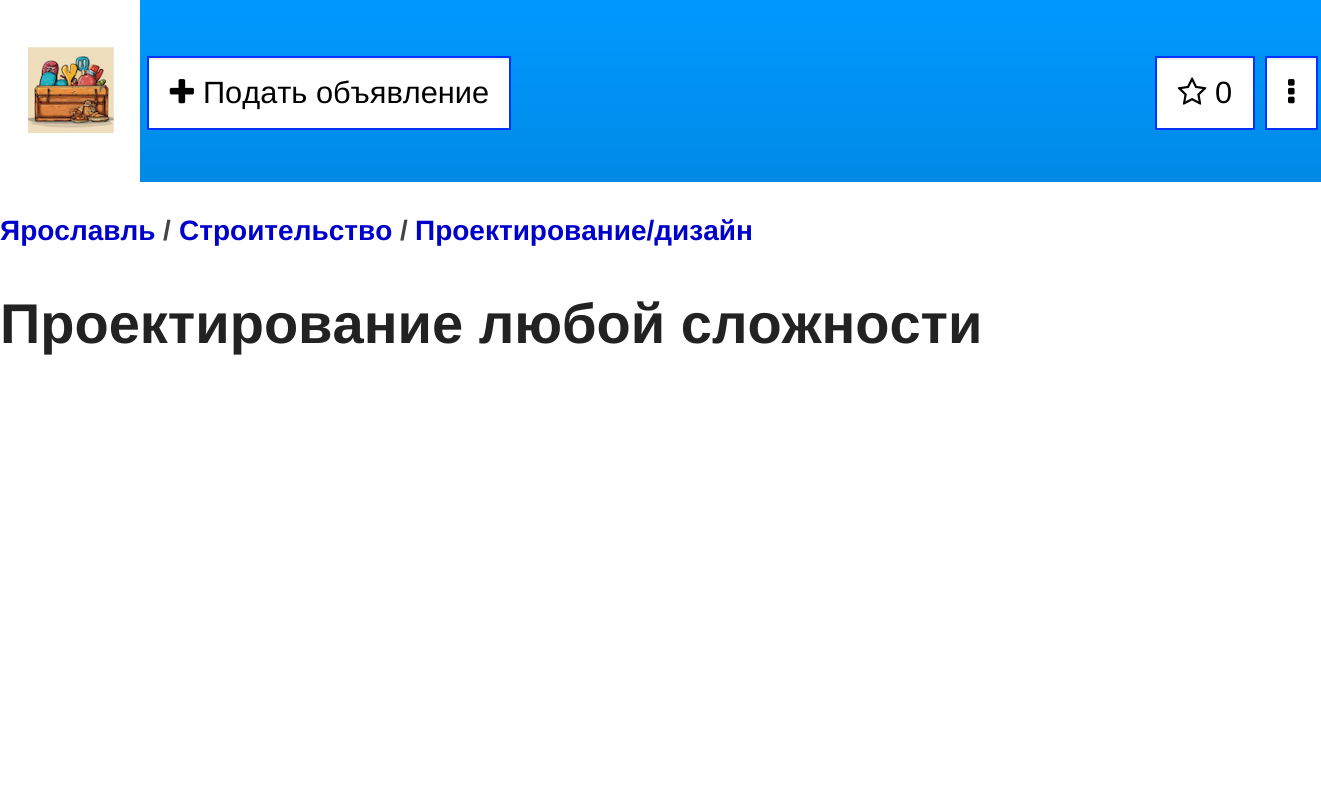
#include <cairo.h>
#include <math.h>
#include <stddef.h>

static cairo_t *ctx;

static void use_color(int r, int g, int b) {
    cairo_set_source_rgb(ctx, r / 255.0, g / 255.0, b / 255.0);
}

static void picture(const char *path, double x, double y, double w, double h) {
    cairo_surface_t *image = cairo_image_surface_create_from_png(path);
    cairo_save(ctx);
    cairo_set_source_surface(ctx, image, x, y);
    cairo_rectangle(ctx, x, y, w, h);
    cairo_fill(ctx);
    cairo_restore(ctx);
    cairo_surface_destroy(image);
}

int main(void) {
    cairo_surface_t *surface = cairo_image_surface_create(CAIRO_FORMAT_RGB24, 1321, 799);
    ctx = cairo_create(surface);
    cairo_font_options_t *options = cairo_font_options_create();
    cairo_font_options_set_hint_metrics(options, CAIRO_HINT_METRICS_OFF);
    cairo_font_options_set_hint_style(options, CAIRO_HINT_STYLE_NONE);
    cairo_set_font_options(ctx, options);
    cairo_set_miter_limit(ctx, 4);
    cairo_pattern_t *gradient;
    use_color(255, 255, 255);
    cairo_paint(ctx);
    gradient = cairo_pattern_create_linear(0, 0, 0, 182);
    cairo_pattern_add_color_stop_rgba(gradient, 0, 0, 0.6, 1, 1);
    cairo_pattern_add_color_stop_rgba(gradient, 1, 0, 0.541, 0.902, 1);
    cairo_set_source(ctx, gradient);
    cairo_pattern_destroy(gradient);
    cairo_rectangle(ctx, 140, 0, 1181, 182);
    cairo_fill(ctx);
    picture("img1.png", 28, 47, 86, 86);
    use_color(255, 255, 255);
    cairo_rectangle(ctx, 149, 60, 360, 68);
    cairo_fill(ctx);
    use_color(236, 236, 236);
    cairo_rectangle(ctx, 149, 58, 360, 2);
    cairo_fill(ctx);
    cairo_rectangle(ctx, 148, 57, 362, 72);
    use_color(0, 51, 255);
    cairo_stroke(ctx);
    picture("img2.png", 169, 79, 25, 25);
    cairo_select_font_face(ctx, "Liberation Sans", CAIRO_FONT_SLANT_NORMAL, CAIRO_FONT_WEIGHT_NORMAL);
    cairo_set_font_size(ctx, 30.75);
    use_color(0, 0, 0);
    cairo_move_to(ctx, 203, 103);
    cairo_show_text(ctx, "Подать объявление");
    use_color(255, 255, 255);
    cairo_rectangle(ctx, 1157, 60, 96, 68);
    cairo_fill(ctx);
    use_color(236, 236, 236);
    cairo_rectangle(ctx, 1157, 58, 96, 2);
    cairo_fill(ctx);
    cairo_rectangle(ctx, 1156, 57, 98, 72);
    use_color(0, 51, 255);
    cairo_stroke(ctx);
    picture("img3.png", 1177, 77, 30, 28);
    use_color(0, 0, 0);
    cairo_move_to(ctx, 1215, 103);
    cairo_show_text(ctx, "0");
    use_color(255, 255, 255);
    cairo_rectangle(ctx, 1267, 60, 49, 68);
    cairo_fill(ctx);
    use_color(236, 236, 236);
    cairo_rectangle(ctx, 1267, 58, 49, 2);
    cairo_fill(ctx);
    cairo_rectangle(ctx, 1266, 57, 51, 72);
    use_color(0, 51, 255);
    cairo_stroke(ctx);
    picture("img4.png", 1288, 79, 7, 25);
    cairo_select_font_face(ctx, "Liberation Sans", CAIRO_FONT_SLANT_NORMAL, CAIRO_FONT_WEIGHT_BOLD);
    cairo_set_font_size(ctx, 28);
    use_color(0, 0, 204);
    cairo_move_to(ctx, 0, 240);
    cairo_show_text(ctx, "Ярославль");
    use_color(68, 68, 68);
    cairo_move_to(ctx, 163, 240);
    cairo_show_text(ctx, "/");
    use_color(0, 0, 204);
    cairo_move_to(ctx, 179, 240);
    cairo_show_text(ctx, "Строительство");
    use_color(68, 68, 68);
    cairo_move_to(ctx, 400, 240);
    cairo_show_text(ctx, "/");
    use_color(0, 0, 204);
    cairo_move_to(ctx, 415, 240);
    cairo_show_text(ctx, "Проектирование/дизайн");
    cairo_set_font_size(ctx, 56);
    use_color(34, 34, 34);
    cairo_move_to(ctx, 0, 343);
    cairo_show_text(ctx, "Проектирование любой сложности");
    cairo_surface_write_to_png(surface, "result.png");
    cairo_font_options_destroy(options);
    cairo_destroy(ctx);
    cairo_surface_destroy(surface);
    return 0;
}
